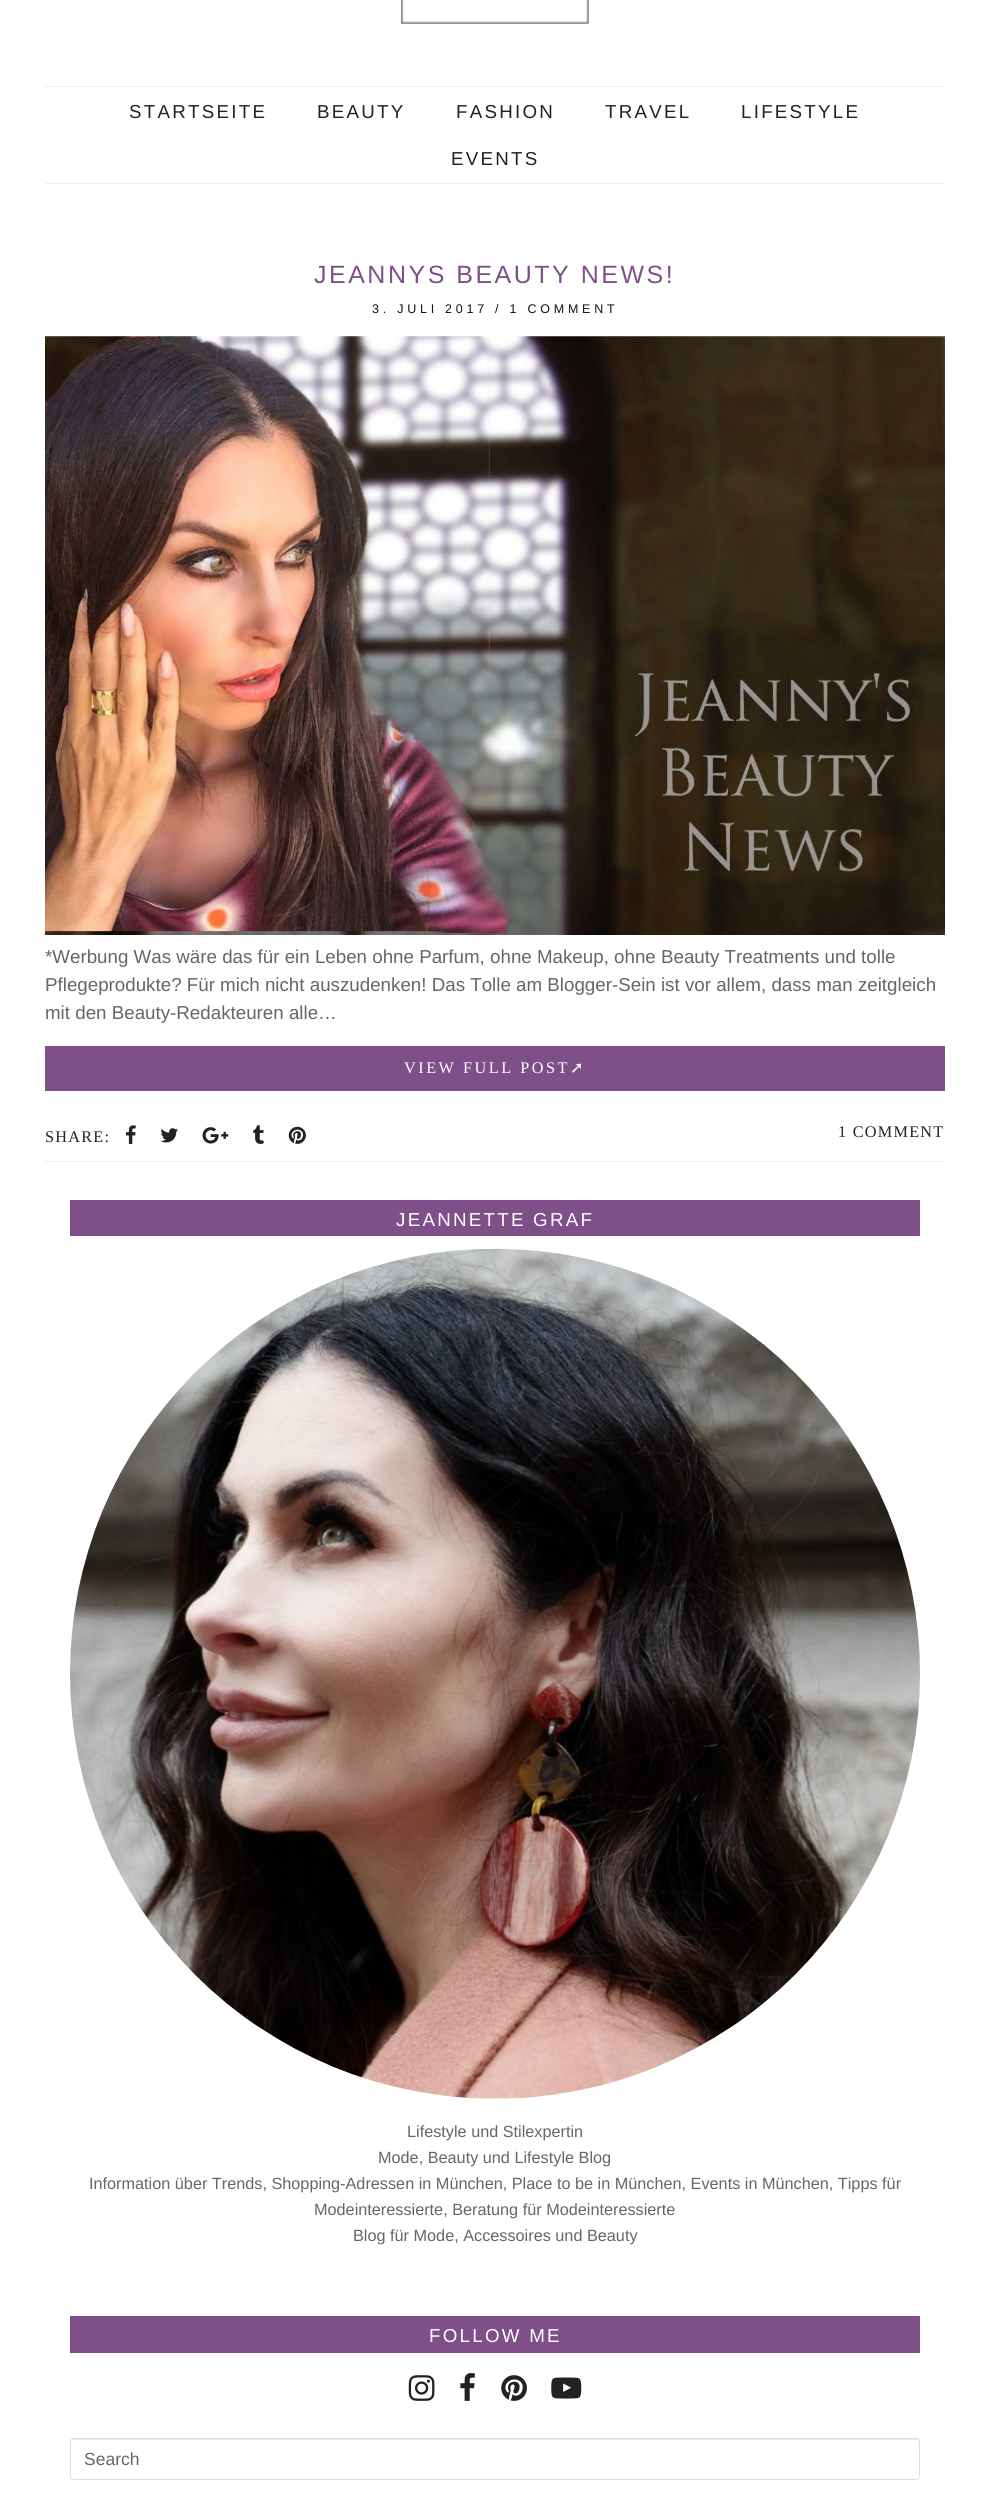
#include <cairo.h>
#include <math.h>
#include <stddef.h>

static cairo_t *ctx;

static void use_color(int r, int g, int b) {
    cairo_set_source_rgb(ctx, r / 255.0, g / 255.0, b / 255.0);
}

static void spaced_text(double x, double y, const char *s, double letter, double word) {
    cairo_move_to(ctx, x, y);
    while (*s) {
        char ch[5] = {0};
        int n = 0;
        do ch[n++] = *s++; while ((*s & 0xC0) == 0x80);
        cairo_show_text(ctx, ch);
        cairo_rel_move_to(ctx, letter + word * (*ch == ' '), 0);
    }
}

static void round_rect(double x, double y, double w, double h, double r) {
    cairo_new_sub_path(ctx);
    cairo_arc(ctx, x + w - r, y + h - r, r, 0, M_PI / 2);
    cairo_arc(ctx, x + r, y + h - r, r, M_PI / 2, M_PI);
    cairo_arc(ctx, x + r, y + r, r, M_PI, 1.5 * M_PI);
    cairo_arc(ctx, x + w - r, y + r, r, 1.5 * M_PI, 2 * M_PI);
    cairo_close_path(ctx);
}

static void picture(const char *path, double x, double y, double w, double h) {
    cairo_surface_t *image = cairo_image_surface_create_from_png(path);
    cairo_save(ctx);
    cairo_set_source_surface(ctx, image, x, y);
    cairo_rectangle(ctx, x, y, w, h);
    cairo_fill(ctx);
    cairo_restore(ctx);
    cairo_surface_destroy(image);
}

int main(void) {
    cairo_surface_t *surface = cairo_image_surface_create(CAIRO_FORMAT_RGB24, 990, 2494);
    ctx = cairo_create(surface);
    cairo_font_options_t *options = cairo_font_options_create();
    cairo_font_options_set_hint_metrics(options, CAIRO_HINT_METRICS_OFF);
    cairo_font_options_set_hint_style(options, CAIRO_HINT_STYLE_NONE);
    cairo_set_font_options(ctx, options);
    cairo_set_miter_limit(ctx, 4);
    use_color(255, 255, 255);
    cairo_paint(ctx);
    picture("img1.png", 401, 0, 188, 24);
    use_color(238, 238, 238);
    cairo_rectangle(ctx, 45, 86, 900, 1);
    cairo_fill(ctx);
    cairo_rectangle(ctx, 45, 183, 900, 1);
    cairo_fill(ctx);
    cairo_select_font_face(ctx, "Liberation Sans", CAIRO_FONT_SLANT_NORMAL, CAIRO_FONT_WEIGHT_NORMAL);
    cairo_set_font_size(ctx, 18.75);
    use_color(34, 34, 34);
    spaced_text(129, 118, "STARTSEITE", 2.25, 0);
    spaced_text(317, 118, "BEAUTY", 2.25, 0);
    spaced_text(456, 118, "FASHION", 2.25, 0);
    spaced_text(605, 118, "TRAVEL", 2.25, 0);
    spaced_text(741, 118, "LIFESTYLE", 2.25, 0);
    spaced_text(451, 165, "EVENTS", 2.25, 0);
    use_color(238, 238, 238);
    cairo_rectangle(ctx, 45, 1161, 900, 1);
    cairo_fill(ctx);
    cairo_set_font_size(ctx, 25);
    use_color(127, 79, 138);
    spaced_text(314, 283, "JEANNYS BEAUTY NEWS!", 2.5, 0);
    cairo_set_font_size(ctx, 12.5);
    use_color(17, 17, 17);
    spaced_text(372, 313, "3. JULI 2017 / 1 COMMENT", 3.75, 0);
    picture("img2.png", 45, 336, 900, 599);
    cairo_set_font_size(ctx, 18.75);
    use_color(102, 102, 102);
    cairo_move_to(ctx, 45, 963);
    cairo_show_text(ctx, "*Werbung Was wäre das für ein Leben ohne Parfum, ohne Makeup, ohne Beauty Treatments und tolle");
    cairo_move_to(ctx, 45, 991);
    cairo_show_text(ctx, "Pflegeprodukte? Für mich nicht auszudenken! Das Tolle am Blogger-Sein ist vor allem, dass man zeitgleich");
    cairo_move_to(ctx, 45, 1019);
    cairo_show_text(ctx, "mit den Beauty-Redakteuren alle…");
    use_color(127, 79, 138);
    cairo_rectangle(ctx, 45, 1046, 900, 45);
    cairo_fill(ctx);
    cairo_select_font_face(ctx, "Liberation Serif", CAIRO_FONT_SLANT_NORMAL, CAIRO_FONT_WEIGHT_NORMAL);
    cairo_set_font_size(ctx, 16.25);
    use_color(255, 255, 255);
    spaced_text(404, 1073, "VIEW FULL POST", 2.5, 0);
    cairo_select_font_face(ctx, "DejaVu Sans", CAIRO_FONT_SLANT_NORMAL, CAIRO_FONT_WEIGHT_NORMAL);
    spaced_text(570, 1073, "➚", 2.5, 0);
    cairo_select_font_face(ctx, "Liberation Serif", CAIRO_FONT_SLANT_NORMAL, CAIRO_FONT_WEIGHT_NORMAL);
    use_color(34, 34, 34);
    spaced_text(45, 1142, "SHARE:", 1.25, 0);
    picture("img3.png", 126, 1125, 10, 19);
    picture("img4.png", 160, 1128, 18, 15);
    picture("img5.png", 202, 1127, 27, 17);
    picture("img6.png", 253, 1125, 11, 19);
    picture("img7.png", 288, 1126, 18, 18);
    spaced_text(838, 1137, "1 COMMENT", 1.25, 0);
    use_color(127, 79, 138);
    cairo_rectangle(ctx, 70, 1200, 850, 36);
    cairo_fill(ctx);
    cairo_select_font_face(ctx, "Liberation Sans", CAIRO_FONT_SLANT_NORMAL, CAIRO_FONT_WEIGHT_NORMAL);
    cairo_set_font_size(ctx, 18.75);
    use_color(255, 255, 255);
    spaced_text(396, 1226, "JEANNETTE GRAF", 2.25, 0);
    picture("img8.png", 70, 1248, 850, 851);
    cairo_set_font_size(ctx, 16.25);
    use_color(102, 102, 102);
    cairo_move_to(ctx, 407, 2137);
    cairo_show_text(ctx, "Lifestyle und Stilexpertin");
    cairo_move_to(ctx, 378, 2163);
    cairo_show_text(ctx, "Mode, Beauty und Lifestyle Blog");
    cairo_move_to(ctx, 89, 2189);
    cairo_show_text(ctx, "Information über Trends, Shopping-Adressen in München, Place to be in München, Events in München, Tipps für");
    cairo_move_to(ctx, 314, 2215);
    cairo_show_text(ctx, "Modeinteressierte, Beratung für Modeinteressierte");
    cairo_move_to(ctx, 353, 2241);
    cairo_show_text(ctx, "Blog für Mode, Accessoires und Beauty");
    use_color(127, 79, 138);
    cairo_rectangle(ctx, 70, 2316, 850, 37);
    cairo_fill(ctx);
    cairo_set_font_size(ctx, 18.75);
    use_color(255, 255, 255);
    spaced_text(429, 2342, "FOLLOW ME", 2.25, 0);
    picture("img9.png", 408, 2375, 27, 26);
    picture("img10.png", 460, 2373, 15, 28);
    picture("img11.png", 501, 2375, 26, 26);
    picture("img12.png", 551, 2377, 31, 22);
    use_color(236, 236, 236);
    cairo_new_path(ctx);
    cairo_move_to(ctx, 74, 2440);
    cairo_line_to(ctx, 916, 2440);
    cairo_curve_to(ctx, 918, 2440, 919, 2441, 919, 2442);
    cairo_curve_to(ctx, 919, 2440, 918, 2439, 916, 2439);
    cairo_line_to(ctx, 74, 2439);
    cairo_curve_to(ctx, 72, 2439, 71, 2440, 71, 2442);
    cairo_curve_to(ctx, 71, 2441, 72, 2440, 74, 2440);
    cairo_close_path(ctx);
    cairo_fill(ctx);
    round_rect(70.5, 2438.5, 849, 41, 3.5);
    use_color(221, 221, 221);
    cairo_set_line_width(ctx, 1);
    cairo_stroke(ctx);
    cairo_set_font_size(ctx, 17.5);
    use_color(102, 102, 102);
    cairo_move_to(ctx, 84, 2465);
    cairo_show_text(ctx, "Search");
    cairo_surface_write_to_png(surface, "result.png");
    cairo_font_options_destroy(options);
    cairo_destroy(ctx);
    cairo_surface_destroy(surface);
    return 0;
}
